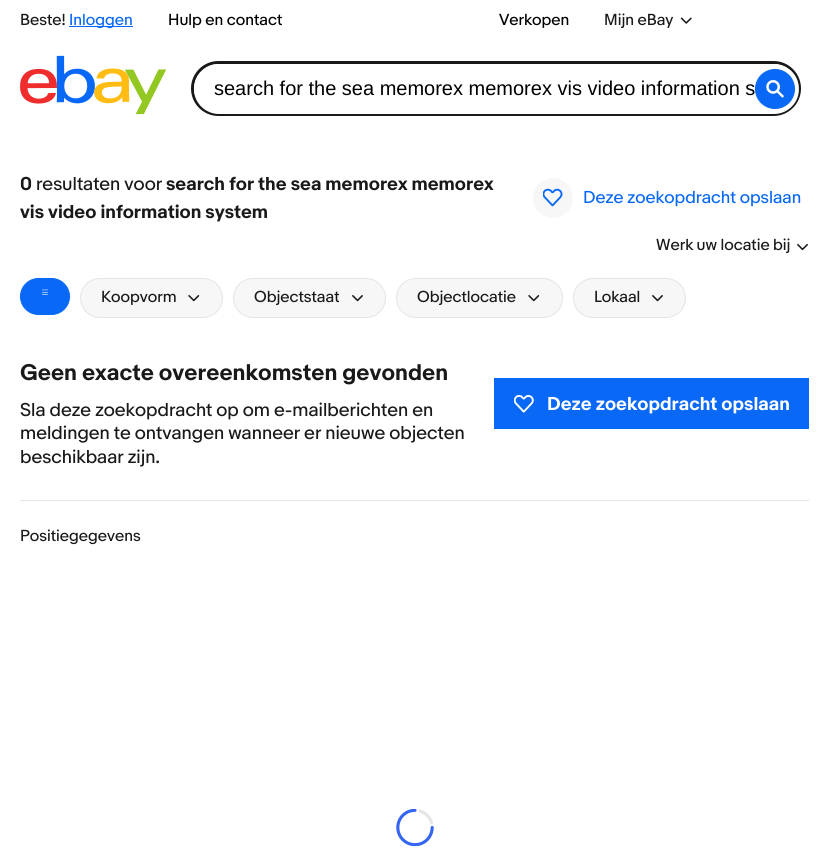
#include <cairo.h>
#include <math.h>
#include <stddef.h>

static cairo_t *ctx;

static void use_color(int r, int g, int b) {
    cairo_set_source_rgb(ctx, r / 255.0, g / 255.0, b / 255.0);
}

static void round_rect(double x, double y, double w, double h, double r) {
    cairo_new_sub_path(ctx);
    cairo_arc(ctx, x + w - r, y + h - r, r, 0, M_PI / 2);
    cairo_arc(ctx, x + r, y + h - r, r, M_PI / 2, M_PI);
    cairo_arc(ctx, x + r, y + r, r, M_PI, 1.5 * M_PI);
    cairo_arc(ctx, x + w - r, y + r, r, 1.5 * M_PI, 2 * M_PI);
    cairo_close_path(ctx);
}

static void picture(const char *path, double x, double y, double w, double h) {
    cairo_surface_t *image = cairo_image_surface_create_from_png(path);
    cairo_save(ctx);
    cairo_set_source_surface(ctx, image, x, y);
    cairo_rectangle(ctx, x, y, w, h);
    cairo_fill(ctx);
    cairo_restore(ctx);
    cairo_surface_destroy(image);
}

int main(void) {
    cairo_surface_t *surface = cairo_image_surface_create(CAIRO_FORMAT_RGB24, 828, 855);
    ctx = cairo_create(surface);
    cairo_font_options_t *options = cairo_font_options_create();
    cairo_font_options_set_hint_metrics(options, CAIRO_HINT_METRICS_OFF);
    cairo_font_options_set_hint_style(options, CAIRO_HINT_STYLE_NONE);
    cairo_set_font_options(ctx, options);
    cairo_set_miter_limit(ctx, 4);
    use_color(255, 255, 255);
    cairo_paint(ctx);
    cairo_select_font_face(ctx, "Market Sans", CAIRO_FONT_SLANT_NORMAL, CAIRO_FONT_WEIGHT_NORMAL);
    cairo_set_font_size(ctx, 15);
    use_color(25, 25, 25);
    cairo_move_to(ctx, 20, 25);
    cairo_show_text(ctx, "Beste!");
    use_color(9, 104, 246);
    cairo_rectangle(ctx, 69, 26, 64, 1);
    cairo_fill(ctx);
    cairo_move_to(ctx, 69, 25);
    cairo_show_text(ctx, "Inloggen");
    use_color(0, 0, 0);
    cairo_move_to(ctx, 168, 25);
    cairo_show_text(ctx, "Hulp en contact");
    cairo_move_to(ctx, 499, 25);
    cairo_show_text(ctx, "Verkopen");
    use_color(25, 25, 25);
    cairo_move_to(ctx, 604, 25);
    cairo_show_text(ctx, "Mijn eBay");
    picture("img1.png", 680, 17, 12, 7);
    picture("img2.png", 20, 55, 146, 60);
    round_rect(192.5, 62.5, 607, 52, 26);
    cairo_set_line_width(ctx, 3);
    cairo_stroke(ctx);
    cairo_save(ctx);
    round_rect(194, 64, 605, 50, 25);
    cairo_clip(ctx);
    use_color(229, 229, 229);
    cairo_rectangle(ctx, 798, 82, 1, 14);
    cairo_fill(ctx);
    use_color(255, 255, 255);
    cairo_new_path(ctx);
    cairo_move_to(ctx, 219, 64);
    cairo_line_to(ctx, 798, 64);
    cairo_line_to(ctx, 798, 114);
    cairo_line_to(ctx, 219, 114);
    cairo_curve_to(ctx, 205, 114, 194, 103, 194, 89);
    cairo_curve_to(ctx, 194, 75, 205, 64, 219, 64);
    cairo_close_path(ctx);
    cairo_fill(ctx);
    cairo_restore(ctx);
    cairo_select_font_face(ctx, "Liberation Sans", CAIRO_FONT_SLANT_NORMAL, CAIRO_FONT_WEIGHT_NORMAL);
    cairo_set_font_size(ctx, 20);
    use_color(0, 0, 0);
    cairo_move_to(ctx, 214, 95);
    cairo_show_text(ctx, "search for the sea memorex memorex vis video information s");
    use_color(9, 104, 246);
    cairo_new_path(ctx);
    cairo_arc(ctx, 775, 89, 19.5, 0, 2 * M_PI);
    cairo_fill_preserve(ctx);
    cairo_set_line_width(ctx, 1);
    cairo_stroke(ctx);
    picture("img3.png", 766, 80, 18, 18);
    cairo_select_font_face(ctx, "Market Sans", CAIRO_FONT_SLANT_NORMAL, CAIRO_FONT_WEIGHT_BOLD);
    cairo_set_font_size(ctx, 17.5);
    use_color(25, 25, 25);
    cairo_move_to(ctx, 20, 190);
    cairo_show_text(ctx, "0");
    cairo_select_font_face(ctx, "Market Sans", CAIRO_FONT_SLANT_NORMAL, CAIRO_FONT_WEIGHT_NORMAL);
    cairo_move_to(ctx, 36, 190);
    cairo_show_text(ctx, "resultaten voor");
    cairo_select_font_face(ctx, "Market Sans", CAIRO_FONT_SLANT_NORMAL, CAIRO_FONT_WEIGHT_BOLD);
    cairo_move_to(ctx, 166, 190);
    cairo_show_text(ctx, "search for the sea memorex memorex");
    cairo_move_to(ctx, 20, 218);
    cairo_show_text(ctx, "vis video information system");
    use_color(247, 247, 247);
    cairo_new_path(ctx);
    cairo_arc(ctx, 553, 198, 20, 0, 2 * M_PI);
    cairo_fill(ctx);
    picture("img4.png", 543, 188, 20, 19);
    cairo_select_font_face(ctx, "Market Sans", CAIRO_FONT_SLANT_NORMAL, CAIRO_FONT_WEIGHT_NORMAL);
    cairo_set_font_size(ctx, 16.25);
    use_color(9, 104, 246);
    cairo_move_to(ctx, 583, 203);
    cairo_show_text(ctx, "Deze zoekopdracht opslaan");
    cairo_set_font_size(ctx, 15);
    use_color(25, 25, 25);
    cairo_move_to(ctx, 656, 250);
    cairo_show_text(ctx, "Werk uw locatie bij");
    picture("img5.png", 797, 243, 11, 8);
    use_color(9, 104, 246);
    round_rect(20.5, 278.5, 49, 36, 18);
    cairo_fill_preserve(ctx);
    cairo_stroke(ctx);
    picture("img6.png", 42, 289, 6, 6);
    use_color(247, 247, 247);
    round_rect(80.5, 278.5, 142, 39, 19.5);
    cairo_fill_preserve(ctx);
    use_color(229, 229, 229);
    cairo_stroke(ctx);
    use_color(25, 25, 25);
    cairo_move_to(ctx, 101, 302);
    cairo_show_text(ctx, "Koopvorm");
    picture("img7.png", 188, 295, 12, 7);
    use_color(247, 247, 247);
    round_rect(233.5, 278.5, 152, 39, 19.5);
    cairo_fill_preserve(ctx);
    use_color(229, 229, 229);
    cairo_stroke(ctx);
    use_color(25, 25, 25);
    cairo_move_to(ctx, 254, 302);
    cairo_show_text(ctx, "Objectstaat");
    picture("img8.png", 352, 295, 11, 7);
    use_color(247, 247, 247);
    round_rect(396.5, 278.5, 166, 39, 19.5);
    cairo_fill_preserve(ctx);
    use_color(229, 229, 229);
    cairo_stroke(ctx);
    use_color(25, 25, 25);
    cairo_move_to(ctx, 417, 302);
    cairo_show_text(ctx, "Objectlocatie");
    picture("img7.png", 528, 295, 12, 7);
    use_color(247, 247, 247);
    round_rect(573.5, 278.5, 112, 39, 19.5);
    cairo_fill_preserve(ctx);
    use_color(229, 229, 229);
    cairo_stroke(ctx);
    use_color(25, 25, 25);
    cairo_move_to(ctx, 594, 302);
    cairo_show_text(ctx, "Lokaal");
    picture("img8.png", 652, 295, 11, 7);
    use_color(229, 229, 229);
    cairo_rectangle(ctx, 20, 500, 789, 1);
    cairo_fill(ctx);
    cairo_select_font_face(ctx, "Market Sans", CAIRO_FONT_SLANT_NORMAL, CAIRO_FONT_WEIGHT_BOLD);
    cairo_set_font_size(ctx, 21.25);
    use_color(25, 25, 25);
    cairo_move_to(ctx, 20, 380);
    cairo_show_text(ctx, "Geen exacte overeenkomsten gevonden");
    cairo_select_font_face(ctx, "Market Sans", CAIRO_FONT_SLANT_NORMAL, CAIRO_FONT_WEIGHT_NORMAL);
    cairo_set_font_size(ctx, 17.5);
    cairo_move_to(ctx, 20, 416);
    cairo_show_text(ctx, "Sla deze zoekopdracht op om e-mailberichten en");
    cairo_move_to(ctx, 20, 439);
    cairo_show_text(ctx, "meldingen te ontvangen wanneer er nieuwe objecten");
    cairo_move_to(ctx, 20, 463);
    cairo_show_text(ctx, "beschikbaar zijn.");
    use_color(9, 104, 246);
    cairo_rectangle(ctx, 494, 378, 315, 51);
    cairo_fill(ctx);
    picture("img9.png", 514, 395, 20, 18);
    cairo_select_font_face(ctx, "Market Sans", CAIRO_FONT_SLANT_NORMAL, CAIRO_FONT_WEIGHT_BOLD);
    use_color(255, 255, 255);
    cairo_move_to(ctx, 547, 410);
    cairo_show_text(ctx, "Deze zoekopdracht opslaan");
    cairo_select_font_face(ctx, "Market Sans", CAIRO_FONT_SLANT_NORMAL, CAIRO_FONT_WEIGHT_NORMAL);
    cairo_set_font_size(ctx, 15);
    use_color(25, 25, 25);
    cairo_move_to(ctx, 20, 541);
    cairo_show_text(ctx, "Positiegegevens");
    picture("img10.png", 396, 809, 38, 37);
    cairo_surface_write_to_png(surface, "result.png");
    cairo_font_options_destroy(options);
    cairo_destroy(ctx);
    cairo_surface_destroy(surface);
    return 0;
}
